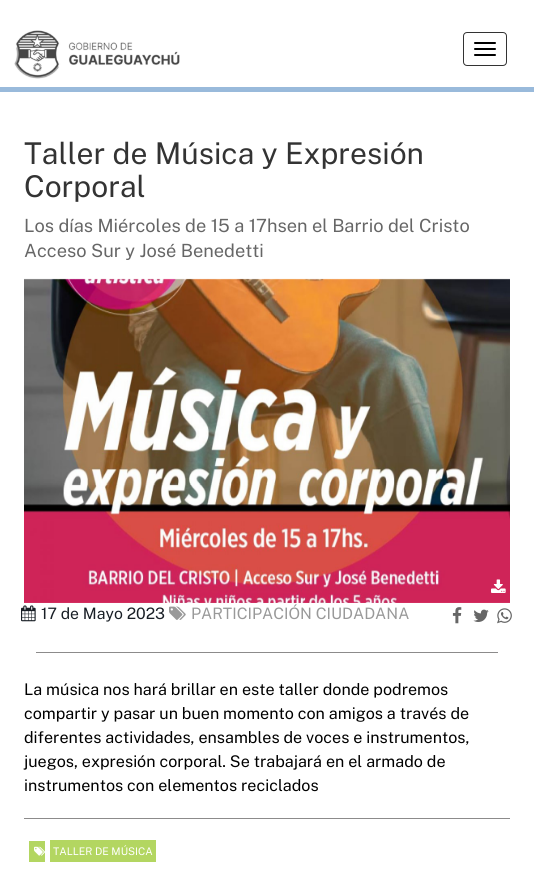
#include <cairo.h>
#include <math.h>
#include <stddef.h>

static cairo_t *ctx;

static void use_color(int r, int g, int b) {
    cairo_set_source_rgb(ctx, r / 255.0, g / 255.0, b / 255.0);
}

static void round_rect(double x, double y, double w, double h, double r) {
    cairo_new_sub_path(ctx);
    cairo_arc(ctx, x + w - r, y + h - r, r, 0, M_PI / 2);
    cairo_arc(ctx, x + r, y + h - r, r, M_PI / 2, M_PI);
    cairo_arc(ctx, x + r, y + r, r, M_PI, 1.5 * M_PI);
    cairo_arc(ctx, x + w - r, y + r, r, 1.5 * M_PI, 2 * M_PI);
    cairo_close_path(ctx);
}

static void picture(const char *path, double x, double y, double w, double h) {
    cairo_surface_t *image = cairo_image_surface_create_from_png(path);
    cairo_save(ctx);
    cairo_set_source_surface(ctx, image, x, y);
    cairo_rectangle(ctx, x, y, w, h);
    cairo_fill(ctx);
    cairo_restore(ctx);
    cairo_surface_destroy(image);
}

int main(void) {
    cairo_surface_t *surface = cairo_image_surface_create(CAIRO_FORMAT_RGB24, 534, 878);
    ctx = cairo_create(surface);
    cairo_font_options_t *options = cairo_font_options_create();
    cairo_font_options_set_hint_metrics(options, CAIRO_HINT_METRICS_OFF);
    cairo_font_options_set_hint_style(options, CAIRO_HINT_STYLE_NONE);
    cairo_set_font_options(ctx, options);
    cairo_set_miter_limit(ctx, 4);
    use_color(255, 255, 255);
    cairo_paint(ctx);
    picture("img1.png", 14, 30, 166, 49);
    round_rect(463.5, 32.5, 43, 33, 3.5);
    use_color(51, 51, 51);
    cairo_set_line_width(ctx, 1);
    cairo_stroke(ctx);
    use_color(0, 0, 0);
    round_rect(474, 42, 22, 2, 1);
    cairo_fill(ctx);
    round_rect(474, 48, 22, 2, 1);
    cairo_fill(ctx);
    round_rect(474, 54, 22, 2, 1);
    cairo_fill(ctx);
    use_color(153, 186, 219);
    cairo_rectangle(ctx, 0, 87, 534, 5);
    cairo_fill(ctx);
    cairo_select_font_face(ctx, "Public Sans Thin", CAIRO_FONT_SLANT_NORMAL, CAIRO_FONT_WEIGHT_NORMAL);
    cairo_set_font_size(ctx, 30);
    use_color(51, 51, 51);
    cairo_move_to(ctx, 24, 164);
    cairo_show_text(ctx, "Taller de Música y Expresión");
    cairo_move_to(ctx, 24, 197);
    cairo_show_text(ctx, "Corporal");
    cairo_set_font_size(ctx, 18.2);
    use_color(102, 102, 102);
    cairo_move_to(ctx, 24, 232);
    cairo_show_text(ctx, "Los días Miércoles de 15 a 17hsen el Barrio del Cristo");
    cairo_move_to(ctx, 24, 257);
    cairo_show_text(ctx, "Acceso Sur y José Benedetti");
    picture("img2.png", 24, 278, 486, 325);
    picture("img3.png", 491, 579, 15, 14);
    picture("img4.png", 21, 605, 15, 17);
    cairo_set_font_size(ctx, 15.75);
    use_color(25, 31, 38);
    cairo_move_to(ctx, 41, 619);
    cairo_show_text(ctx, "17 de Mayo 2023");
    picture("img5.png", 169, 606, 17, 14);
    use_color(153, 153, 153);
    cairo_move_to(ctx, 191, 619);
    cairo_show_text(ctx, "PARTICIPACIÓN CIUDADANA");
    picture("img6.png", 452, 607, 10, 17);
    picture("img7.png", 473, 609, 16, 13);
    picture("img8.png", 497, 608, 15, 16);
    use_color(140, 139, 139);
    cairo_rectangle(ctx, 36, 652, 462, 1);
    cairo_fill(ctx);
    cairo_set_font_size(ctx, 16.1);
    use_color(0, 0, 0);
    cairo_move_to(ctx, 24, 695);
    cairo_show_text(ctx, "La música nos hará brillar en este taller donde podremos");
    cairo_move_to(ctx, 24, 719);
    cairo_show_text(ctx, "compartir y pasar un buen momento con amigos a través de");
    cairo_move_to(ctx, 24, 743);
    cairo_show_text(ctx, "diferentes actividades, ensambles de voces e instrumentos,");
    cairo_move_to(ctx, 24, 767);
    cairo_show_text(ctx, "juegos, expresión corporal. Se trabajará en el armado de");
    cairo_move_to(ctx, 24, 791);
    cairo_show_text(ctx, "instrumentos con elementos reciclados");
    use_color(140, 139, 139);
    cairo_rectangle(ctx, 24, 818, 486, 1);
    cairo_fill(ctx);
    use_color(179, 214, 97);
    cairo_rectangle(ctx, 29, 841, 16, 21);
    cairo_fill(ctx);
    cairo_rectangle(ctx, 50, 840, 106, 22);
    cairo_fill(ctx);
    picture("img9.png", 34, 846, 11, 10);
    cairo_set_font_size(ctx, 10.5);
    use_color(255, 255, 255);
    cairo_move_to(ctx, 53, 855);
    cairo_show_text(ctx, "TALLER DE MÚSICA");
    cairo_surface_write_to_png(surface, "result.png");
    cairo_font_options_destroy(options);
    cairo_destroy(ctx);
    cairo_surface_destroy(surface);
    return 0;
}
